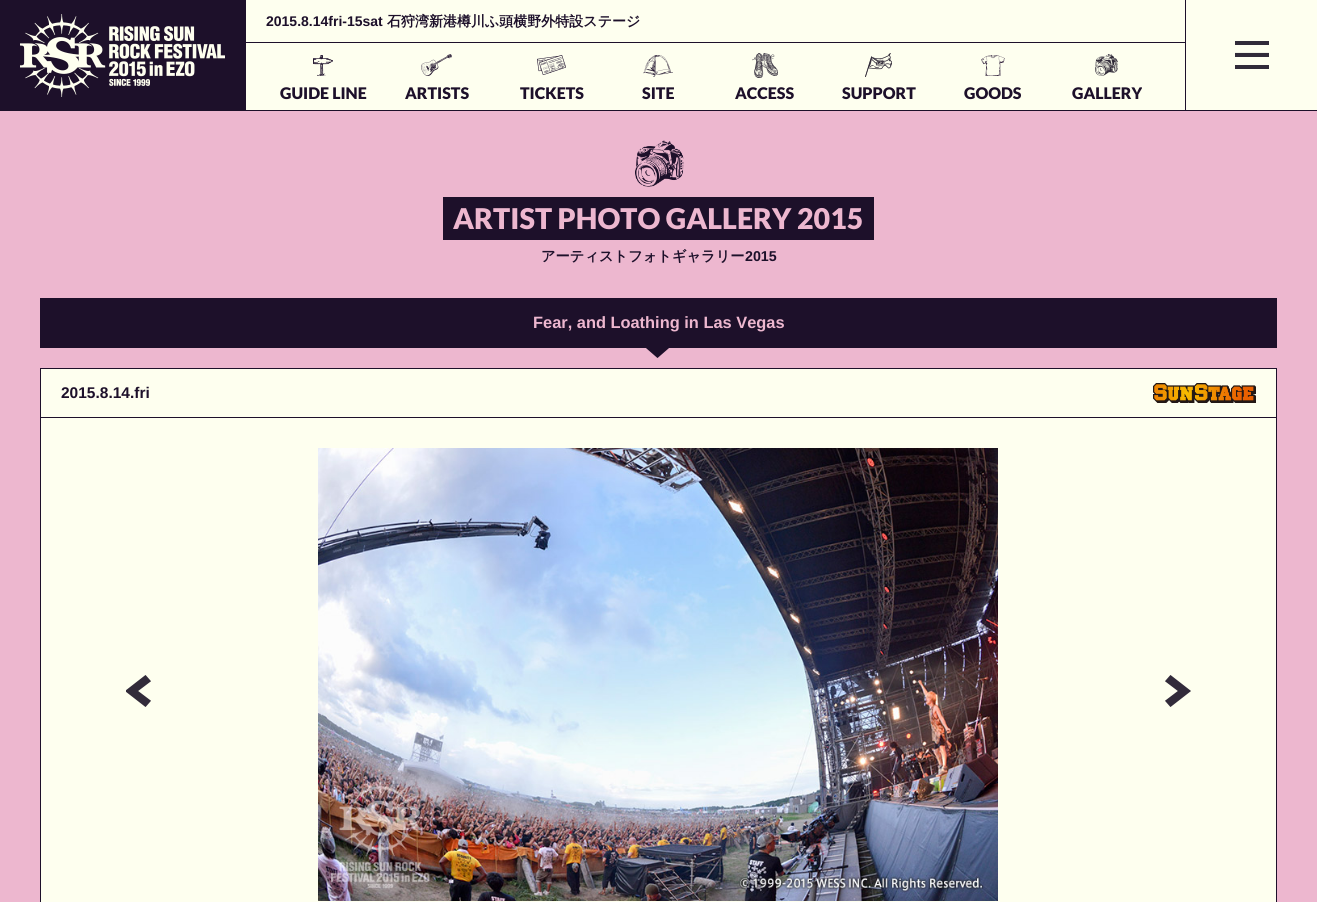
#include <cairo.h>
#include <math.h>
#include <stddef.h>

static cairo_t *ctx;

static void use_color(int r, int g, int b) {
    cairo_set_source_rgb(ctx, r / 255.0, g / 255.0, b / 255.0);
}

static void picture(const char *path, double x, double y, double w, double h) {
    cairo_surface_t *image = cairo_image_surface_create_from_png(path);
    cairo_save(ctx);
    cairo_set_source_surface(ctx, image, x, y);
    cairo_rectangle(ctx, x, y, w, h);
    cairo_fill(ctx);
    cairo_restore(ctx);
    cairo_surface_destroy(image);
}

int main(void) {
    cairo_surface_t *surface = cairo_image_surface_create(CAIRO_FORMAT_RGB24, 1317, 902);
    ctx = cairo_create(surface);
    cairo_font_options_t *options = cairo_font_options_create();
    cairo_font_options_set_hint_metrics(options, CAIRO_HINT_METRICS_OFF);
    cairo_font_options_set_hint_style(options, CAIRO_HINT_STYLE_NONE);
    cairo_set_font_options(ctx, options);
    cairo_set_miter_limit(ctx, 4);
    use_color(237, 183, 207);
    cairo_paint(ctx);
    use_color(254, 255, 239);
    cairo_rectangle(ctx, 246, 0, 1071, 110);
    cairo_fill(ctx);
    use_color(29, 16, 42);
    cairo_rectangle(ctx, 0, 110, 1317, 1);
    cairo_fill(ctx);
    cairo_rectangle(ctx, 0, 0, 246, 110);
    cairo_fill(ctx);
    picture("img1.png", 20, 14, 205, 83);
    cairo_rectangle(ctx, 246, 42, 939, 1);
    cairo_fill(ctx);
    cairo_select_font_face(ctx, "Liberation Sans", CAIRO_FONT_SLANT_NORMAL, CAIRO_FONT_WEIGHT_BOLD);
    cairo_set_font_size(ctx, 14);
    cairo_move_to(ctx, 266, 26);
    cairo_show_text(ctx, "2015.8.14fri-15sat");
    cairo_select_font_face(ctx, "WenQuanYi Zen Hei", CAIRO_FONT_SLANT_NORMAL, CAIRO_FONT_WEIGHT_BOLD);
    cairo_move_to(ctx, 387, 26);
    cairo_show_text(ctx, "石狩湾新港樽川ふ頭横野外特設ステージ");
    picture("img2.png", 313, 55, 20, 21);
    cairo_select_font_face(ctx, "Lato Black", CAIRO_FONT_SLANT_NORMAL, CAIRO_FONT_WEIGHT_NORMAL);
    cairo_set_font_size(ctx, 16);
    cairo_move_to(ctx, 280, 99);
    cairo_show_text(ctx, "GUIDE LINE");
    picture("img3.png", 421, 54, 31, 22);
    cairo_move_to(ctx, 405, 99);
    cairo_show_text(ctx, "ARTISTS");
    picture("img4.png", 537, 55, 29, 20);
    cairo_move_to(ctx, 520, 99);
    cairo_show_text(ctx, "TICKETS");
    picture("img5.png", 643, 55, 30, 22);
    cairo_move_to(ctx, 642, 99);
    cairo_show_text(ctx, "SITE");
    picture("img6.png", 752, 53, 26, 25);
    cairo_move_to(ctx, 735, 99);
    cairo_show_text(ctx, "ACCESS");
    picture("img7.png", 865, 53, 27, 24);
    cairo_move_to(ctx, 842, 99);
    cairo_show_text(ctx, "SUPPORT");
    picture("img8.png", 981, 55, 24, 21);
    cairo_move_to(ctx, 964, 99);
    cairo_show_text(ctx, "GOODS");
    picture("img9.png", 1095, 54, 23, 22);
    cairo_move_to(ctx, 1072, 99);
    cairo_show_text(ctx, "GALLERY");
    picture("img10.png", 1235, 41, 34, 28);
    cairo_rectangle(ctx, 1185, 0, 1, 110);
    cairo_fill(ctx);
    picture("img11.png", 635, 140, 49, 47);
    cairo_rectangle(ctx, 443, 197, 431, 43);
    cairo_fill(ctx);
    cairo_set_font_size(ctx, 28.6);
    use_color(237, 183, 207);
    cairo_move_to(ctx, 453, 229);
    cairo_show_text(ctx, "ARTIST PHOTO GALLERY 2015");
    cairo_select_font_face(ctx, "WenQuanYi Zen Hei", CAIRO_FONT_SLANT_NORMAL, CAIRO_FONT_WEIGHT_BOLD);
    cairo_set_font_size(ctx, 14.25);
    use_color(29, 16, 42);
    cairo_move_to(ctx, 541, 261);
    cairo_show_text(ctx, "アーティストフォトギャラリー");
    cairo_select_font_face(ctx, "Liberation Sans", CAIRO_FONT_SLANT_NORMAL, CAIRO_FONT_WEIGHT_BOLD);
    cairo_move_to(ctx, 745, 261);
    cairo_show_text(ctx, "2015");
    cairo_rectangle(ctx, 40, 298, 1237, 50);
    cairo_fill(ctx);
    cairo_set_font_size(ctx, 16.4);
    use_color(237, 183, 207);
    cairo_move_to(ctx, 533, 328);
    cairo_show_text(ctx, "Fear, and Loathing in Las Vegas");
    picture("img12.png", 646, 348, 23, 10);
    use_color(254, 255, 239);
    cairo_rectangle(ctx, 40.5, 368.5, 1236, 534);
    cairo_fill_preserve(ctx);
    use_color(29, 16, 42);
    cairo_set_line_width(ctx, 1);
    cairo_stroke(ctx);
    cairo_rectangle(ctx, 41, 417, 1235, 1);
    cairo_fill(ctx);
    cairo_set_font_size(ctx, 15.5);
    cairo_move_to(ctx, 61, 398);
    cairo_show_text(ctx, "2015.8.14.fri");
    picture("img13.png", 1153, 383, 103, 20);
    picture("img14.png", 126, 675, 25, 32);
    picture("img15.png", 318, 448, 680, 453);
    picture("img16.png", 1165, 675, 26, 32);
    cairo_surface_write_to_png(surface, "result.png");
    cairo_font_options_destroy(options);
    cairo_destroy(ctx);
    cairo_surface_destroy(surface);
    return 0;
}
